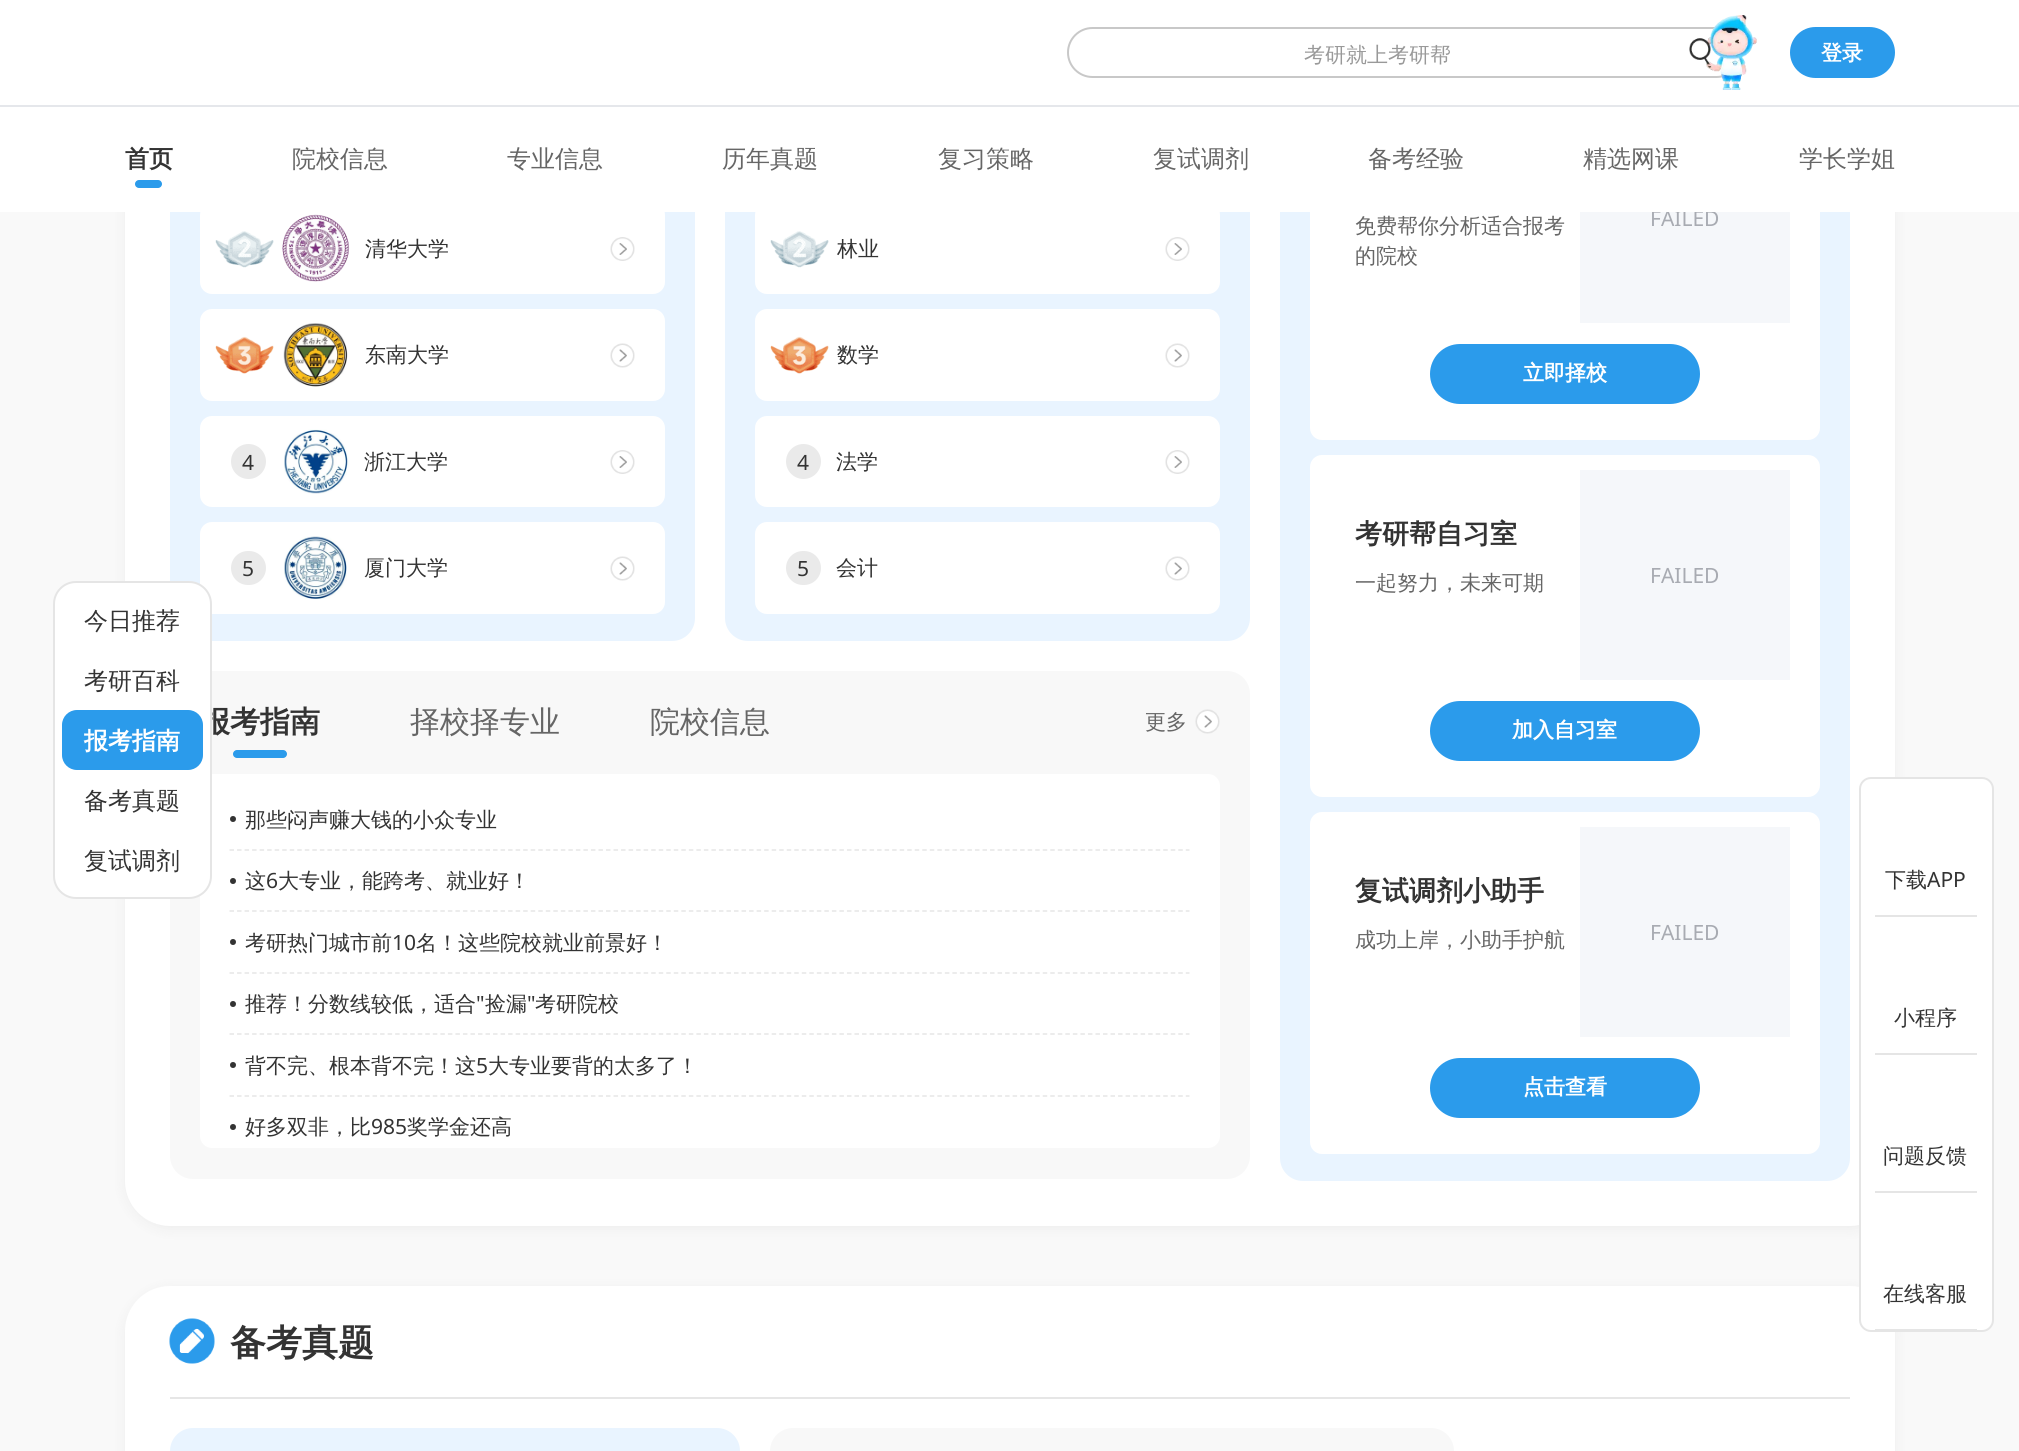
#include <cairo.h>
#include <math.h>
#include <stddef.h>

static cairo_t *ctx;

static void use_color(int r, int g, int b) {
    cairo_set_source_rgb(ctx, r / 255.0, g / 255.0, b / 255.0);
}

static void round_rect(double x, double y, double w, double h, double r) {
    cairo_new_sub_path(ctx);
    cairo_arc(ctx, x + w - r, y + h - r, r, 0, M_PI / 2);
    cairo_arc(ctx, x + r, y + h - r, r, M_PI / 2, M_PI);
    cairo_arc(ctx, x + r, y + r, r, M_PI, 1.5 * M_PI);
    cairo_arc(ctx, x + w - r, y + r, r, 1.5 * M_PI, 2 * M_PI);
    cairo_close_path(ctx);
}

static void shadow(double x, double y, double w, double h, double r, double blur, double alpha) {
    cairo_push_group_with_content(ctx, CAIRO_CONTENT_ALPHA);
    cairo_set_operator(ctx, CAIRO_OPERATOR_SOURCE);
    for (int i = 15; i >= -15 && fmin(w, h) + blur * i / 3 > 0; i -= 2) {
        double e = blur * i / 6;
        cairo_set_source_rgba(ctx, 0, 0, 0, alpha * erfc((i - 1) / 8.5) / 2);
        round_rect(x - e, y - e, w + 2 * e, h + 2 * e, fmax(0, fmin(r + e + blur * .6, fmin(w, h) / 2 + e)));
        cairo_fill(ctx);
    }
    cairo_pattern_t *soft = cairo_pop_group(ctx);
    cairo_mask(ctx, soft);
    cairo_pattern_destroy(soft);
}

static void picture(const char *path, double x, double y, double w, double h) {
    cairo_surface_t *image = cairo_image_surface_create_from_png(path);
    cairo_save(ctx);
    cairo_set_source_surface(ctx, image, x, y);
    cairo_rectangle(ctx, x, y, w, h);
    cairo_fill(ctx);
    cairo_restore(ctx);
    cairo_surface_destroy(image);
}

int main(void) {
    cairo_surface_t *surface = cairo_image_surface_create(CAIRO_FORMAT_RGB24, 2019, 1451);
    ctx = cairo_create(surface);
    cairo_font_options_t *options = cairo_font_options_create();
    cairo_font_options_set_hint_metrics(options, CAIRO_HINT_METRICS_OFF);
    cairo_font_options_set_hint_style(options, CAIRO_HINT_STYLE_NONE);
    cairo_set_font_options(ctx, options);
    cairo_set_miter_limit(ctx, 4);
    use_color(249, 249, 249);
    cairo_paint(ctx);
    use_color(0, 0, 0);
    shadow(125, -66, 1770, 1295, 45, 7, 0.05);
    use_color(255, 255, 255);
    round_rect(125, -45, 1770, 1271, 45);
    cairo_fill(ctx);
    use_color(233, 244, 255);
    round_rect(170, -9, 525, 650, 23);
    cairo_fill(ctx);
    round_rect(725, -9, 525, 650, 23);
    cairo_fill(ctx);
    round_rect(1280, -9, 570, 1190, 23);
    cairo_fill(ctx);
    use_color(255, 255, 255);
    round_rect(1310, 98, 510, 342, 12);
    cairo_fill(ctx);
    cairo_rectangle(ctx, 0, 0, 2019, 105);
    cairo_fill(ctx);
    use_color(229, 231, 235);
    cairo_rectangle(ctx, 0, 105, 2019, 2);
    cairo_fill(ctx);
    round_rect(1068, 28, 673, 49, 24.5);
    use_color(200, 200, 200);
    cairo_stroke(ctx);
    cairo_select_font_face(ctx, "WenQuanYi Zen Hei Medium", CAIRO_FONT_SLANT_NORMAL, CAIRO_FONT_WEIGHT_NORMAL);
    cairo_set_font_size(ctx, 21);
    use_color(153, 153, 153);
    cairo_move_to(ctx, 1304, 62);
    cairo_show_text(ctx, "考研就上考研帮");
    picture("img1.png", 1689, 15, 68, 75);
    use_color(43, 155, 235);
    round_rect(1790, 27, 105, 51, 25.5);
    cairo_fill(ctx);
    cairo_select_font_face(ctx, "WenQuanYi Zen Hei", CAIRO_FONT_SLANT_NORMAL, CAIRO_FONT_WEIGHT_BOLD);
    use_color(255, 255, 255);
    cairo_move_to(ctx, 1821, 60);
    cairo_show_text(ctx, "登录");
    round_rect(200, 203, 465, 91, 12);
    cairo_fill(ctx);
    round_rect(755, 203, 465, 91, 12);
    cairo_fill(ctx);
    use_color(245, 247, 250);
    cairo_rectangle(ctx, 1580, 212, 210, 111);
    cairo_fill(ctx);
    cairo_select_font_face(ctx, "Noto Sans", CAIRO_FONT_SLANT_NORMAL, CAIRO_FONT_WEIGHT_NORMAL);
    use_color(168, 171, 178);
    cairo_move_to(ctx, 1650, 226);
    cairo_show_text(ctx, "FAILED");
    use_color(255, 255, 255);
    cairo_rectangle(ctx, 0, 107, 2019, 105);
    cairo_fill(ctx);
    cairo_select_font_face(ctx, "WenQuanYi Zen Hei", CAIRO_FONT_SLANT_NORMAL, CAIRO_FONT_WEIGHT_BOLD);
    cairo_set_font_size(ctx, 24);
    use_color(51, 51, 51);
    cairo_move_to(ctx, 125, 167);
    cairo_show_text(ctx, "首页");
    use_color(43, 155, 235);
    round_rect(135, 180, 27, 8, 4);
    cairo_fill(ctx);
    cairo_select_font_face(ctx, "WenQuanYi Zen Hei Medium", CAIRO_FONT_SLANT_NORMAL, CAIRO_FONT_WEIGHT_NORMAL);
    use_color(102, 102, 102);
    cairo_move_to(ctx, 292, 167);
    cairo_show_text(ctx, "院校信息");
    cairo_move_to(ctx, 507, 167);
    cairo_show_text(ctx, "专业信息");
    cairo_move_to(ctx, 722, 167);
    cairo_show_text(ctx, "历年真题");
    cairo_move_to(ctx, 938, 167);
    cairo_show_text(ctx, "复习策略");
    cairo_move_to(ctx, 1153, 167);
    cairo_show_text(ctx, "复试调剂");
    cairo_move_to(ctx, 1368, 167);
    cairo_show_text(ctx, "备考经验");
    cairo_move_to(ctx, 1583, 167);
    cairo_show_text(ctx, "精选网课");
    cairo_move_to(ctx, 1799, 167);
    cairo_show_text(ctx, "学长学姐");
    use_color(255, 255, 255);
    round_rect(200, 522, 465, 92, 12);
    cairo_fill(ctx);
    use_color(248, 248, 248);
    round_rect(170, 671, 1080, 508, 23);
    cairo_fill(ctx);
    cairo_select_font_face(ctx, "WenQuanYi Zen Hei", CAIRO_FONT_SLANT_NORMAL, CAIRO_FONT_WEIGHT_BOLD);
    cairo_set_font_size(ctx, 30);
    use_color(51, 51, 51);
    cairo_move_to(ctx, 200, 732);
    cairo_show_text(ctx, "报考指南");
    use_color(255, 255, 255);
    round_rect(200, 774, 1020, 374, 12);
    cairo_fill(ctx);
    round_rect(54, 582, 157, 316, 22);
    cairo_fill_preserve(ctx);
    use_color(229, 229, 229);
    cairo_stroke(ctx);
    cairo_select_font_face(ctx, "WenQuanYi Zen Hei Medium", CAIRO_FONT_SLANT_NORMAL, CAIRO_FONT_WEIGHT_NORMAL);
    cairo_set_font_size(ctx, 24);
    use_color(51, 51, 51);
    cairo_move_to(ctx, 84, 629);
    cairo_show_text(ctx, "今日推荐");
    cairo_move_to(ctx, 84, 689);
    cairo_show_text(ctx, "考研百科");
    use_color(43, 155, 235);
    round_rect(62, 710, 141, 60, 15);
    cairo_fill(ctx);
    cairo_select_font_face(ctx, "WenQuanYi Zen Hei", CAIRO_FONT_SLANT_NORMAL, CAIRO_FONT_WEIGHT_BOLD);
    use_color(255, 255, 255);
    cairo_move_to(ctx, 84, 749);
    cairo_show_text(ctx, "报考指南");
    cairo_select_font_face(ctx, "WenQuanYi Zen Hei Medium", CAIRO_FONT_SLANT_NORMAL, CAIRO_FONT_WEIGHT_NORMAL);
    use_color(51, 51, 51);
    cairo_move_to(ctx, 84, 809);
    cairo_show_text(ctx, "备考真题");
    cairo_move_to(ctx, 84, 869);
    cairo_show_text(ctx, "复试调剂");
    picture("img2.png", 610, 237, 25, 24);
    picture("img3.png", 215, 231, 59, 37);
    picture("img4.png", 282, 214, 68, 68);
    cairo_set_font_size(ctx, 21);
    cairo_move_to(ctx, 365, 256);
    cairo_show_text(ctx, "清华大学");
    use_color(255, 255, 255);
    round_rect(200, 309, 465, 92, 12);
    cairo_fill(ctx);
    picture("img5.png", 610, 343, 25, 25);
    picture("img6.png", 215, 336, 59, 38);
    picture("img7.png", 283, 323, 65, 64);
    use_color(51, 51, 51);
    cairo_move_to(ctx, 365, 362);
    cairo_show_text(ctx, "东南大学");
    use_color(255, 255, 255);
    round_rect(200, 416, 465, 91, 12);
    cairo_fill(ctx);
    picture("img2.png", 610, 450, 25, 24);
    use_color(234, 234, 234);
    cairo_arc(ctx, 248.5, 461.5, 17.5, 0, 2 * M_PI);
    cairo_fill(ctx);
    cairo_select_font_face(ctx, "Noto Sans", CAIRO_FONT_SLANT_NORMAL, CAIRO_FONT_WEIGHT_NORMAL);
    use_color(51, 51, 51);
    cairo_move_to(ctx, 242, 470);
    cairo_show_text(ctx, "4");
    picture("img8.png", 284, 429, 65, 65);
    cairo_select_font_face(ctx, "WenQuanYi Zen Hei Medium", CAIRO_FONT_SLANT_NORMAL, CAIRO_FONT_WEIGHT_NORMAL);
    cairo_move_to(ctx, 364, 469);
    cairo_show_text(ctx, "浙江大学");
    picture("img5.png", 610, 556, 25, 25);
    use_color(234, 234, 234);
    round_rect(231, 551, 35, 34, 17);
    cairo_fill(ctx);
    cairo_select_font_face(ctx, "Noto Sans", CAIRO_FONT_SLANT_NORMAL, CAIRO_FONT_WEIGHT_NORMAL);
    use_color(51, 51, 51);
    cairo_move_to(ctx, 242, 576);
    cairo_show_text(ctx, "5");
    picture("img9.png", 284, 536, 63, 63);
    cairo_select_font_face(ctx, "WenQuanYi Zen Hei Medium", CAIRO_FONT_SLANT_NORMAL, CAIRO_FONT_WEIGHT_NORMAL);
    cairo_move_to(ctx, 364, 575);
    cairo_show_text(ctx, "厦门大学");
    picture("img2.png", 1165, 237, 25, 24);
    picture("img3.png", 770, 231, 59, 37);
    cairo_move_to(ctx, 837, 256);
    cairo_show_text(ctx, "林业");
    use_color(255, 255, 255);
    round_rect(755, 309, 465, 92, 12);
    cairo_fill(ctx);
    picture("img5.png", 1165, 343, 25, 25);
    picture("img6.png", 770, 336, 59, 38);
    use_color(51, 51, 51);
    cairo_move_to(ctx, 837, 362);
    cairo_show_text(ctx, "数学");
    use_color(255, 255, 255);
    round_rect(755, 416, 465, 91, 12);
    cairo_fill(ctx);
    picture("img2.png", 1165, 450, 25, 24);
    use_color(234, 234, 234);
    cairo_arc(ctx, 803.5, 461.5, 17.5, 0, 2 * M_PI);
    cairo_fill(ctx);
    cairo_select_font_face(ctx, "Noto Sans", CAIRO_FONT_SLANT_NORMAL, CAIRO_FONT_WEIGHT_NORMAL);
    use_color(51, 51, 51);
    cairo_move_to(ctx, 797, 470);
    cairo_show_text(ctx, "4");
    cairo_select_font_face(ctx, "WenQuanYi Zen Hei Medium", CAIRO_FONT_SLANT_NORMAL, CAIRO_FONT_WEIGHT_NORMAL);
    cairo_move_to(ctx, 836, 469);
    cairo_show_text(ctx, "法学");
    use_color(255, 255, 255);
    round_rect(755, 522, 465, 92, 12);
    cairo_fill(ctx);
    picture("img5.png", 1165, 556, 25, 25);
    use_color(234, 234, 234);
    round_rect(786, 551, 35, 34, 17);
    cairo_fill(ctx);
    cairo_select_font_face(ctx, "Noto Sans", CAIRO_FONT_SLANT_NORMAL, CAIRO_FONT_WEIGHT_NORMAL);
    use_color(51, 51, 51);
    cairo_move_to(ctx, 797, 576);
    cairo_show_text(ctx, "5");
    cairo_select_font_face(ctx, "WenQuanYi Zen Hei Medium", CAIRO_FONT_SLANT_NORMAL, CAIRO_FONT_WEIGHT_NORMAL);
    cairo_move_to(ctx, 836, 575);
    cairo_show_text(ctx, "会计");
    use_color(43, 155, 235);
    round_rect(233, 750, 54, 8, 4);
    cairo_fill(ctx);
    cairo_set_font_size(ctx, 30);
    use_color(102, 102, 102);
    cairo_move_to(ctx, 410, 732);
    cairo_show_text(ctx, "择校择专业");
    cairo_move_to(ctx, 650, 732);
    cairo_show_text(ctx, "院校信息");
    picture("img10.png", 1195, 709, 25, 25);
    cairo_set_font_size(ctx, 21);
    cairo_move_to(ctx, 1145, 729);
    cairo_show_text(ctx, "更多");
    cairo_new_path(ctx);
    cairo_move_to(ctx, 229.5, 850);
    cairo_line_to(ctx, 1189.5, 850);
    use_color(230, 230, 230);
    cairo_set_line_width(ctx, 1.5);
    cairo_set_dash(ctx, (double[]){4.5, 3.03}, 2, 0);
    cairo_stroke(ctx);
    use_color(51, 51, 51);
    cairo_arc(ctx, 233, 819, 3, 0, 2 * M_PI);
    cairo_fill(ctx);
    cairo_move_to(ctx, 245, 827);
    cairo_show_text(ctx, "那些闷声赚大钱的小众专业");
    cairo_new_path(ctx);
    cairo_move_to(ctx, 229.5, 911);
    cairo_line_to(ctx, 1189.5, 911);
    use_color(230, 230, 230);
    cairo_stroke(ctx);
    use_color(51, 51, 51);
    cairo_arc(ctx, 233, 881, 3, 0, 2 * M_PI);
    cairo_fill(ctx);
    cairo_move_to(ctx, 245, 888);
    cairo_show_text(ctx, "这");
    cairo_select_font_face(ctx, "Noto Sans", CAIRO_FONT_SLANT_NORMAL, CAIRO_FONT_WEIGHT_NORMAL);
    cairo_move_to(ctx, 266, 888);
    cairo_show_text(ctx, "6");
    cairo_select_font_face(ctx, "WenQuanYi Zen Hei Medium", CAIRO_FONT_SLANT_NORMAL, CAIRO_FONT_WEIGHT_NORMAL);
    cairo_move_to(ctx, 278, 888);
    cairo_show_text(ctx, "大专业，能跨考、就业好！");
    cairo_new_path(ctx);
    cairo_move_to(ctx, 229.5, 973);
    cairo_line_to(ctx, 1189.5, 973);
    use_color(230, 230, 230);
    cairo_stroke(ctx);
    use_color(51, 51, 51);
    cairo_arc(ctx, 233, 942, 3, 0, 2 * M_PI);
    cairo_fill(ctx);
    cairo_move_to(ctx, 245, 950);
    cairo_show_text(ctx, "考研热门城市前");
    cairo_select_font_face(ctx, "Noto Sans", CAIRO_FONT_SLANT_NORMAL, CAIRO_FONT_WEIGHT_NORMAL);
    cairo_move_to(ctx, 392, 950);
    cairo_show_text(ctx, "10");
    cairo_select_font_face(ctx, "WenQuanYi Zen Hei Medium", CAIRO_FONT_SLANT_NORMAL, CAIRO_FONT_WEIGHT_NORMAL);
    cairo_move_to(ctx, 416, 950);
    cairo_show_text(ctx, "名！这些院校就业前景好！");
    cairo_new_path(ctx);
    cairo_move_to(ctx, 229.5, 1034);
    cairo_line_to(ctx, 1189.5, 1034);
    use_color(230, 230, 230);
    cairo_stroke(ctx);
    use_color(51, 51, 51);
    cairo_move_to(ctx, 245, 1011);
    cairo_show_text(ctx, "推荐！分数线较低，适合");
    cairo_select_font_face(ctx, "Noto Sans", CAIRO_FONT_SLANT_NORMAL, CAIRO_FONT_WEIGHT_NORMAL);
    cairo_move_to(ctx, 476, 1011);
    cairo_show_text(ctx, "\"");
    cairo_select_font_face(ctx, "WenQuanYi Zen Hei Medium", CAIRO_FONT_SLANT_NORMAL, CAIRO_FONT_WEIGHT_NORMAL);
    cairo_move_to(ctx, 485, 1011);
    cairo_show_text(ctx, "捡漏");
    cairo_select_font_face(ctx, "Noto Sans", CAIRO_FONT_SLANT_NORMAL, CAIRO_FONT_WEIGHT_NORMAL);
    cairo_move_to(ctx, 527, 1011);
    cairo_show_text(ctx, "\"");
    cairo_select_font_face(ctx, "WenQuanYi Zen Hei Medium", CAIRO_FONT_SLANT_NORMAL, CAIRO_FONT_WEIGHT_NORMAL);
    cairo_move_to(ctx, 535, 1011);
    cairo_show_text(ctx, "考研院校");
    cairo_new_path(ctx);
    cairo_arc(ctx, 233, 1004, 3, 0, 2 * M_PI);
    cairo_fill(ctx);
    cairo_new_path(ctx);
    cairo_move_to(ctx, 229.5, 1096);
    cairo_line_to(ctx, 1189.5, 1096);
    use_color(230, 230, 230);
    cairo_stroke(ctx);
    use_color(51, 51, 51);
    cairo_arc(ctx, 233, 1065, 3, 0, 2 * M_PI);
    cairo_fill(ctx);
    cairo_move_to(ctx, 245, 1073);
    cairo_show_text(ctx, "背不完、根本背不完！这");
    cairo_select_font_face(ctx, "Noto Sans", CAIRO_FONT_SLANT_NORMAL, CAIRO_FONT_WEIGHT_NORMAL);
    cairo_move_to(ctx, 476, 1073);
    cairo_show_text(ctx, "5");
    cairo_select_font_face(ctx, "WenQuanYi Zen Hei Medium", CAIRO_FONT_SLANT_NORMAL, CAIRO_FONT_WEIGHT_NORMAL);
    cairo_move_to(ctx, 488, 1073);
    cairo_show_text(ctx, "大专业要背的太多了！");
    cairo_new_path(ctx);
    cairo_arc(ctx, 233, 1127, 3, 0, 2 * M_PI);
    cairo_fill(ctx);
    cairo_move_to(ctx, 245, 1134);
    cairo_show_text(ctx, "好多双非，比");
    cairo_select_font_face(ctx, "Noto Sans", CAIRO_FONT_SLANT_NORMAL, CAIRO_FONT_WEIGHT_NORMAL);
    cairo_move_to(ctx, 371, 1134);
    cairo_show_text(ctx, "985");
    cairo_select_font_face(ctx, "WenQuanYi Zen Hei Medium", CAIRO_FONT_SLANT_NORMAL, CAIRO_FONT_WEIGHT_NORMAL);
    cairo_move_to(ctx, 407, 1134);
    cairo_show_text(ctx, "奖学金还高");
    use_color(102, 102, 102);
    cairo_move_to(ctx, 1355, 233);
    cairo_show_text(ctx, "免费帮你分析适合报考");
    cairo_move_to(ctx, 1355, 263);
    cairo_show_text(ctx, "的院校");
    use_color(43, 155, 235);
    round_rect(1430, 344, 270, 60, 30);
    cairo_fill(ctx);
    cairo_select_font_face(ctx, "WenQuanYi Zen Hei", CAIRO_FONT_SLANT_NORMAL, CAIRO_FONT_WEIGHT_BOLD);
    use_color(255, 255, 255);
    cairo_move_to(ctx, 1523, 380);
    cairo_show_text(ctx, "立即择校");
    round_rect(1310, 455, 510, 342, 12);
    cairo_fill(ctx);
    cairo_set_font_size(ctx, 27);
    use_color(51, 51, 51);
    cairo_move_to(ctx, 1355, 543);
    cairo_show_text(ctx, "考研帮自习室");
    cairo_select_font_face(ctx, "WenQuanYi Zen Hei Medium", CAIRO_FONT_SLANT_NORMAL, CAIRO_FONT_WEIGHT_NORMAL);
    cairo_set_font_size(ctx, 21);
    use_color(102, 102, 102);
    cairo_move_to(ctx, 1355, 590);
    cairo_show_text(ctx, "一起努力，未来可期");
    use_color(245, 247, 250);
    cairo_rectangle(ctx, 1580, 470, 210, 210);
    cairo_fill(ctx);
    cairo_select_font_face(ctx, "Noto Sans", CAIRO_FONT_SLANT_NORMAL, CAIRO_FONT_WEIGHT_NORMAL);
    use_color(168, 171, 178);
    cairo_move_to(ctx, 1650, 583);
    cairo_show_text(ctx, "FAILED");
    use_color(43, 155, 235);
    round_rect(1430, 701, 270, 60, 30);
    cairo_fill(ctx);
    cairo_select_font_face(ctx, "WenQuanYi Zen Hei", CAIRO_FONT_SLANT_NORMAL, CAIRO_FONT_WEIGHT_BOLD);
    use_color(255, 255, 255);
    cairo_move_to(ctx, 1512, 737);
    cairo_show_text(ctx, "加入自习室");
    round_rect(1310, 812, 510, 342, 12);
    cairo_fill(ctx);
    cairo_set_font_size(ctx, 27);
    use_color(51, 51, 51);
    cairo_move_to(ctx, 1355, 900);
    cairo_show_text(ctx, "复试调剂小助手");
    cairo_select_font_face(ctx, "WenQuanYi Zen Hei Medium", CAIRO_FONT_SLANT_NORMAL, CAIRO_FONT_WEIGHT_NORMAL);
    cairo_set_font_size(ctx, 21);
    use_color(102, 102, 102);
    cairo_move_to(ctx, 1355, 947);
    cairo_show_text(ctx, "成功上岸，小助手护航");
    use_color(245, 247, 250);
    cairo_rectangle(ctx, 1580, 827, 210, 210);
    cairo_fill(ctx);
    cairo_select_font_face(ctx, "Noto Sans", CAIRO_FONT_SLANT_NORMAL, CAIRO_FONT_WEIGHT_NORMAL);
    use_color(168, 171, 178);
    cairo_move_to(ctx, 1650, 940);
    cairo_show_text(ctx, "FAILED");
    use_color(43, 155, 235);
    round_rect(1430, 1058, 270, 60, 30);
    cairo_fill(ctx);
    cairo_select_font_face(ctx, "WenQuanYi Zen Hei", CAIRO_FONT_SLANT_NORMAL, CAIRO_FONT_WEIGHT_BOLD);
    use_color(255, 255, 255);
    cairo_move_to(ctx, 1523, 1094);
    cairo_show_text(ctx, "点击查看");
    use_color(0, 0, 0);
    shadow(125, 1289, 1770, 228, 45, 7, 0.05);
    use_color(255, 255, 255);
    round_rect(125, 1286, 1770, 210, 45);
    cairo_fill(ctx);
    use_color(230, 230, 230);
    cairo_rectangle(ctx, 170, 1397, 1680, 2);
    cairo_fill(ctx);
    picture("img11.png", 169, 1318, 46, 46);
    cairo_set_font_size(ctx, 36);
    use_color(51, 51, 51);
    cairo_move_to(ctx, 230, 1355);
    cairo_show_text(ctx, "备考真题");
    use_color(233, 244, 255);
    round_rect(170, 1428, 570, 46, 23);
    cairo_fill(ctx);
    use_color(248, 248, 248);
    round_rect(770, 1428, 684, 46, 23);
    cairo_fill(ctx);
    use_color(255, 255, 255);
    round_rect(1860, 778, 133, 553, 11);
    cairo_fill_preserve(ctx);
    use_color(229, 229, 229);
    cairo_set_line_width(ctx, 2);
    cairo_set_dash(ctx, NULL, 0, 0);
    cairo_stroke(ctx);
    cairo_rectangle(ctx, 1875, 915, 102, 2);
    cairo_fill(ctx);
    cairo_select_font_face(ctx, "WenQuanYi Zen Hei Medium", CAIRO_FONT_SLANT_NORMAL, CAIRO_FONT_WEIGHT_NORMAL);
    cairo_set_font_size(ctx, 21);
    use_color(51, 51, 51);
    cairo_move_to(ctx, 1885, 887);
    cairo_show_text(ctx, "下载");
    cairo_select_font_face(ctx, "Noto Sans", CAIRO_FONT_SLANT_NORMAL, CAIRO_FONT_WEIGHT_NORMAL);
    cairo_move_to(ctx, 1927, 887);
    cairo_show_text(ctx, "APP");
    use_color(229, 229, 229);
    cairo_rectangle(ctx, 1875, 1053, 102, 2);
    cairo_fill(ctx);
    cairo_select_font_face(ctx, "WenQuanYi Zen Hei Medium", CAIRO_FONT_SLANT_NORMAL, CAIRO_FONT_WEIGHT_NORMAL);
    use_color(51, 51, 51);
    cairo_move_to(ctx, 1894, 1025);
    cairo_show_text(ctx, "小程序");
    use_color(229, 229, 229);
    cairo_rectangle(ctx, 1875, 1191, 102, 2);
    cairo_fill(ctx);
    use_color(51, 51, 51);
    cairo_move_to(ctx, 1883, 1163);
    cairo_show_text(ctx, "问题反馈");
    use_color(229, 229, 229);
    cairo_rectangle(ctx, 1875, 1329, 102, 1);
    cairo_fill(ctx);
    use_color(51, 51, 51);
    cairo_move_to(ctx, 1883, 1301);
    cairo_show_text(ctx, "在线客服");
    cairo_surface_write_to_png(surface, "result.png");
    cairo_font_options_destroy(options);
    cairo_destroy(ctx);
    cairo_surface_destroy(surface);
    return 0;
}
